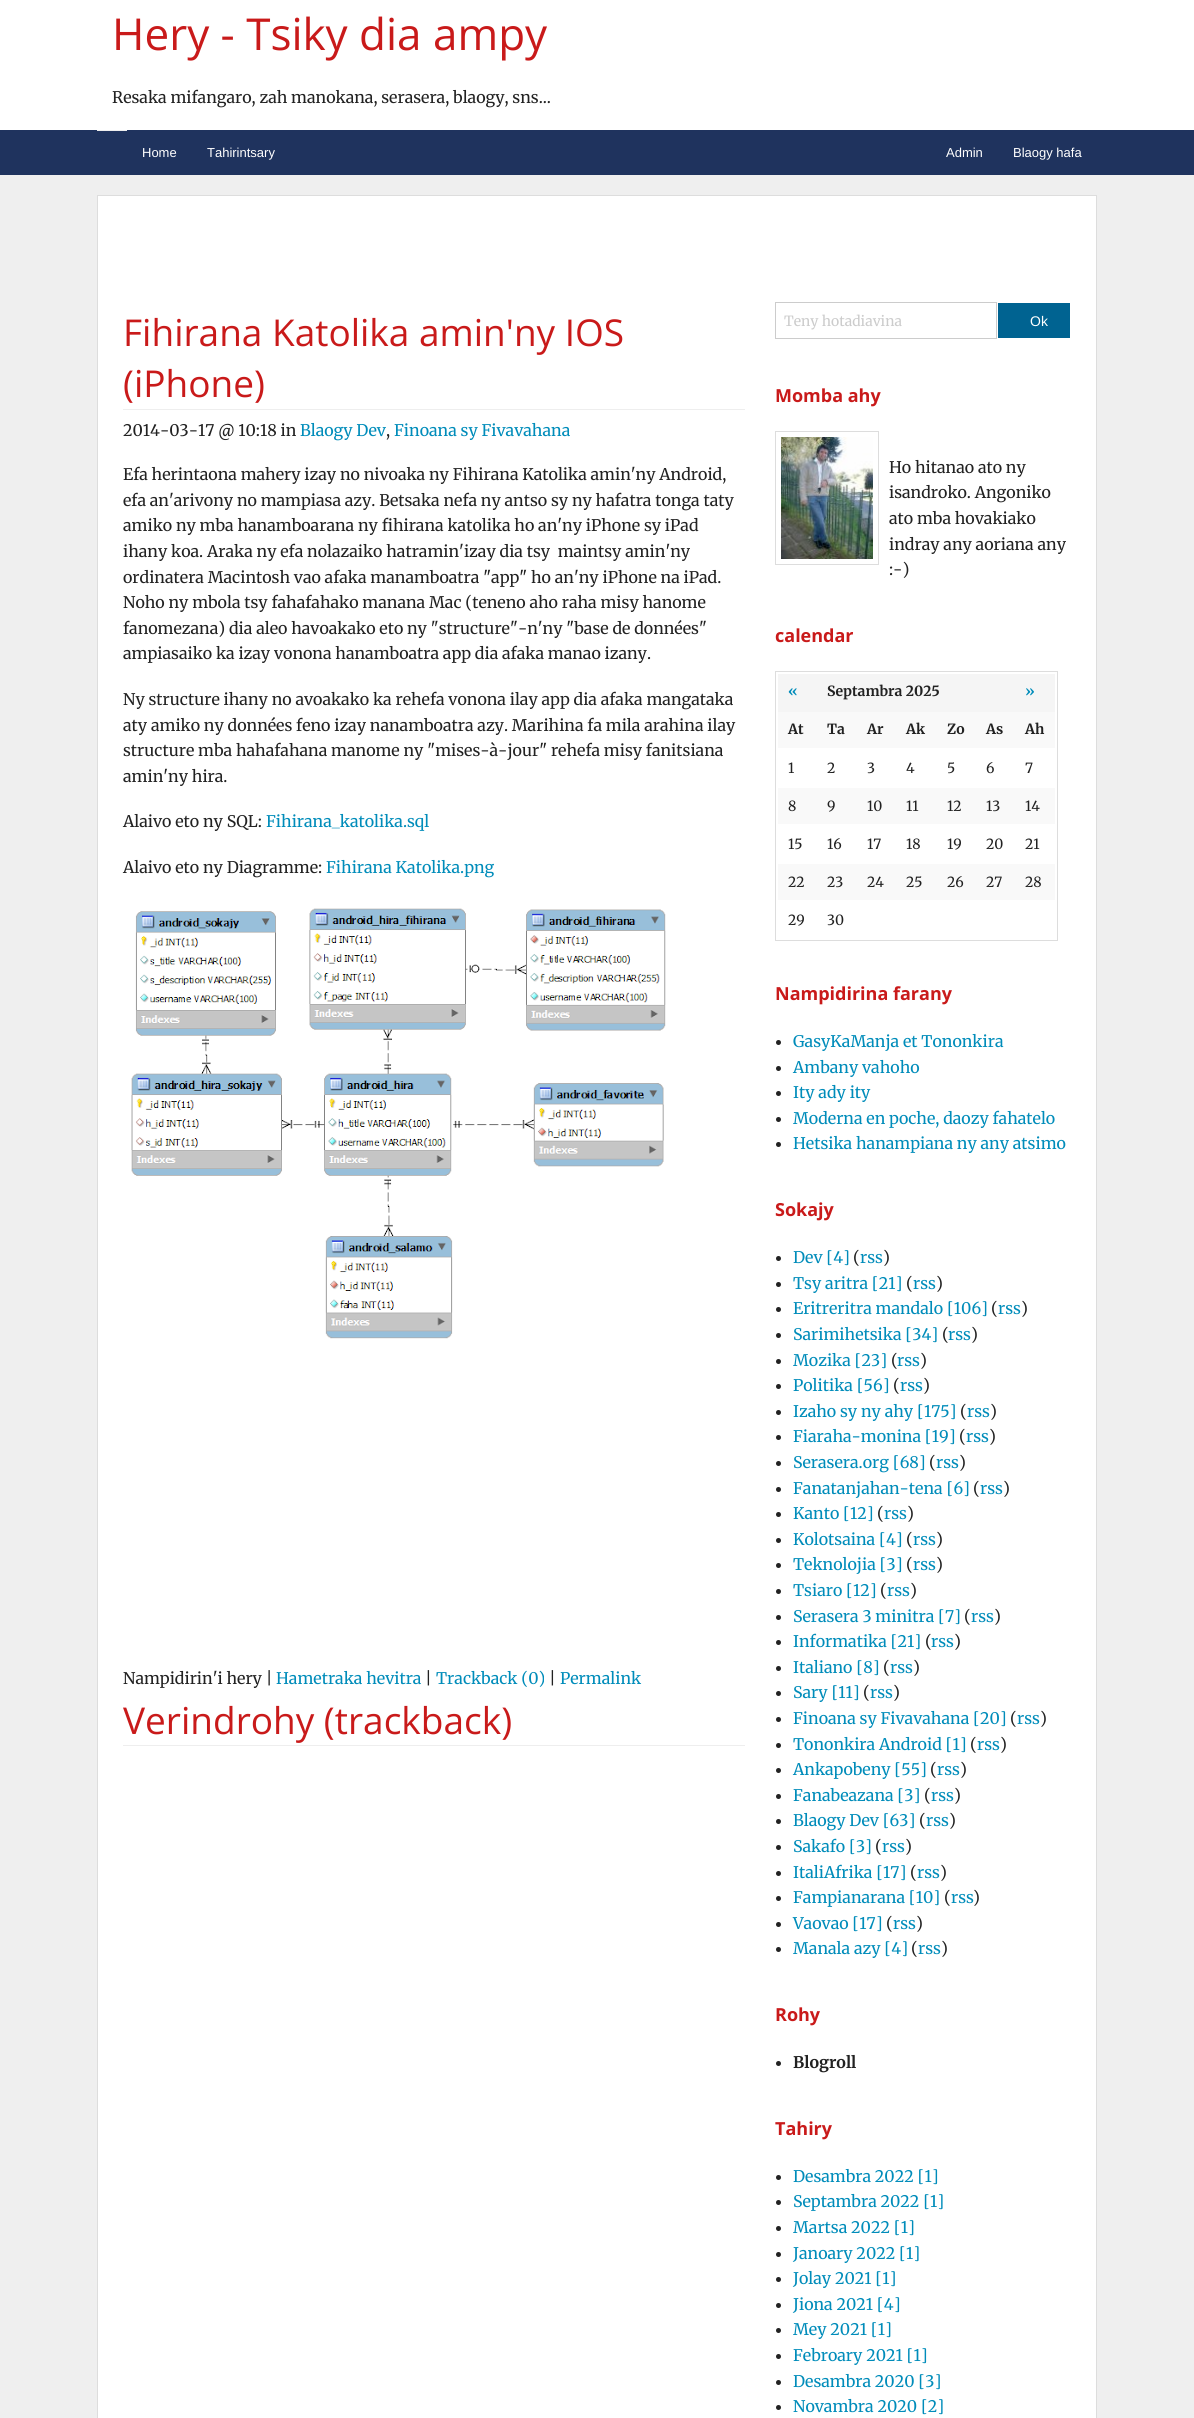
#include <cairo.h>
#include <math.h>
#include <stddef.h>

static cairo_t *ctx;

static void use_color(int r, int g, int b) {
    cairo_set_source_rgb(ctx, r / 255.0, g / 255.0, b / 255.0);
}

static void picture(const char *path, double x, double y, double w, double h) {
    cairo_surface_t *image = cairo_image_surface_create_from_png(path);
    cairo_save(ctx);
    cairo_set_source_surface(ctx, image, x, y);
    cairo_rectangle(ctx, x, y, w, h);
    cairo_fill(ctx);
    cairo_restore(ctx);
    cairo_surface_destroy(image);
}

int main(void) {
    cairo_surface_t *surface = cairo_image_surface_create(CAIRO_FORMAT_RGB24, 1194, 2418);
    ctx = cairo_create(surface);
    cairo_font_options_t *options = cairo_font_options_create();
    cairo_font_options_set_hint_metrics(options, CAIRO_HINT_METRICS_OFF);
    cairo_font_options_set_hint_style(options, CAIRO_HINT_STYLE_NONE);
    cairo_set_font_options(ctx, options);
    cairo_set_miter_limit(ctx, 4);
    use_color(255, 255, 255);
    cairo_paint(ctx);
    cairo_select_font_face(ctx, "Open Sans", CAIRO_FONT_SLANT_NORMAL, CAIRO_FONT_WEIGHT_NORMAL);
    cairo_set_font_size(ctx, 44);
    use_color(201, 26, 26);
    cairo_move_to(ctx, 112, 50);
    cairo_show_text(ctx, "Hery - Tsiky dia ampy");
    cairo_select_font_face(ctx, "Merriweather", CAIRO_FONT_SLANT_NORMAL, CAIRO_FONT_WEIGHT_NORMAL);
    cairo_set_font_size(ctx, 16);
    use_color(34, 34, 34);
    cairo_move_to(ctx, 112, 103);
    cairo_show_text(ctx, "Resaka mifangaro, zah manokana, serasera, blaogy, sns...");
    use_color(31, 51, 94);
    cairo_rectangle(ctx, 0, 130, 1194, 45);
    cairo_fill(ctx);
    use_color(238, 238, 238);
    cairo_rectangle(ctx, 97, 130, 30, 1);
    cairo_fill(ctx);
    cairo_select_font_face(ctx, "Liberation Sans", CAIRO_FONT_SLANT_NORMAL, CAIRO_FONT_WEIGHT_NORMAL);
    cairo_set_font_size(ctx, 13);
    use_color(255, 255, 255);
    cairo_move_to(ctx, 142, 157);
    cairo_show_text(ctx, "Home");
    cairo_move_to(ctx, 207, 157);
    cairo_show_text(ctx, "Tahirintsary");
    cairo_move_to(ctx, 946, 157);
    cairo_show_text(ctx, "Admin");
    cairo_move_to(ctx, 1013, 157);
    cairo_show_text(ctx, "Blaogy hafa");
    use_color(239, 239, 239);
    cairo_rectangle(ctx, 0, 175, 1194, 2243);
    cairo_fill(ctx);
    use_color(255, 255, 255);
    cairo_rectangle(ctx, 97.5, 195.5, 999, 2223);
    cairo_fill_preserve(ctx);
    use_color(221, 221, 221);
    cairo_set_line_width(ctx, 1);
    cairo_stroke(ctx);
    use_color(238, 238, 238);
    cairo_rectangle(ctx, 123, 409, 622, 1);
    cairo_fill(ctx);
    cairo_select_font_face(ctx, "Open Sans", CAIRO_FONT_SLANT_NORMAL, CAIRO_FONT_WEIGHT_NORMAL);
    cairo_set_font_size(ctx, 37);
    use_color(201, 26, 26);
    cairo_move_to(ctx, 123, 346);
    cairo_show_text(ctx, "Fihirana Katolika amin'ny IOS");
    cairo_move_to(ctx, 123, 397);
    cairo_show_text(ctx, "(iPhone)");
    cairo_select_font_face(ctx, "Merriweather", CAIRO_FONT_SLANT_NORMAL, CAIRO_FONT_WEIGHT_NORMAL);
    cairo_set_font_size(ctx, 16);
    use_color(34, 34, 34);
    cairo_move_to(ctx, 123, 436);
    cairo_show_text(ctx, "2014-03-17 @ 10:18 in");
    use_color(0, 140, 186);
    cairo_move_to(ctx, 300, 436);
    cairo_show_text(ctx, "Blaogy Dev");
    use_color(34, 34, 34);
    cairo_move_to(ctx, 386, 436);
    cairo_show_text(ctx, ",");
    use_color(0, 140, 186);
    cairo_move_to(ctx, 394, 436);
    cairo_show_text(ctx, "Finoana sy Fivavahana");
    use_color(34, 34, 34);
    cairo_move_to(ctx, 123, 480);
    cairo_show_text(ctx, "Efa herintaona mahery izay no nivoaka ny Fihirana Katolika amin'ny Android,");
    cairo_move_to(ctx, 123, 506);
    cairo_show_text(ctx, "efa an'arivony no mampiasa azy. Betsaka nefa ny antso sy ny hafatra tonga taty");
    cairo_move_to(ctx, 123, 531);
    cairo_show_text(ctx, "amiko ny mba hanamboarana ny fihirana katolika ho an'ny iPhone sy iPad");
    cairo_move_to(ctx, 123, 557);
    cairo_show_text(ctx, "ihany koa. Araka ny efa nolazaiko hatramin'izay dia tsy  maintsy amin'ny");
    cairo_move_to(ctx, 123, 583);
    cairo_show_text(ctx, "ordinatera Macintosh vao afaka manamboatra \"app\" ho an'ny iPhone na iPad.");
    cairo_move_to(ctx, 123, 608);
    cairo_show_text(ctx, "Noho ny mbola tsy fahafahako manana Mac (teneno aho raha misy hanome");
    cairo_move_to(ctx, 123, 634);
    cairo_show_text(ctx, "fanomezana) dia aleo havoakako eto ny \"structure\"-n'ny \"base de données\"");
    cairo_move_to(ctx, 123, 659);
    cairo_show_text(ctx, "ampiasaiko ka izay vonona hanamboatra app dia afaka manao izany.");
    cairo_move_to(ctx, 123, 705);
    cairo_show_text(ctx, "Ny structure ihany no avoakako ka rehefa vonona ilay app dia afaka mangataka");
    cairo_move_to(ctx, 123, 731);
    cairo_show_text(ctx, "aty amiko ny données feno izay nanamboatra azy. Marihina fa mila arahina ilay");
    cairo_move_to(ctx, 123, 756);
    cairo_show_text(ctx, "structure mba hahafahana manome ny \"mises-à-jour\" rehefa misy fanitsiana");
    cairo_move_to(ctx, 123, 782);
    cairo_show_text(ctx, "amin'ny hira.");
    cairo_move_to(ctx, 123, 827);
    cairo_show_text(ctx, "Alaivo eto ny SQL:");
    use_color(0, 140, 186);
    cairo_move_to(ctx, 266, 827);
    cairo_show_text(ctx, "Fihirana_katolika.sql");
    use_color(34, 34, 34);
    cairo_move_to(ctx, 123, 873);
    cairo_show_text(ctx, "Alaivo eto ny Diagramme:");
    use_color(0, 140, 186);
    cairo_move_to(ctx, 326, 873);
    cairo_show_text(ctx, "Fihirana Katolika.png");
    picture("img1.png", 131, 908, 535, 431);
    use_color(34, 34, 34);
    cairo_move_to(ctx, 123, 1684);
    cairo_show_text(ctx, "Nampidirin'i hery |");
    use_color(0, 140, 186);
    cairo_move_to(ctx, 276, 1684);
    cairo_show_text(ctx, "Hametraka hevitra");
    use_color(34, 34, 34);
    cairo_move_to(ctx, 425, 1684);
    cairo_show_text(ctx, "|");
    use_color(0, 140, 186);
    cairo_move_to(ctx, 436, 1684);
    cairo_show_text(ctx, "Trackback (0)");
    use_color(34, 34, 34);
    cairo_move_to(ctx, 549, 1684);
    cairo_show_text(ctx, "|");
    use_color(0, 140, 186);
    cairo_move_to(ctx, 560, 1684);
    cairo_show_text(ctx, "Permalink");
    use_color(238, 238, 238);
    cairo_rectangle(ctx, 123, 1745, 622, 1);
    cairo_fill(ctx);
    cairo_select_font_face(ctx, "Open Sans", CAIRO_FONT_SLANT_NORMAL, CAIRO_FONT_WEIGHT_NORMAL);
    cairo_set_font_size(ctx, 37);
    use_color(201, 26, 26);
    cairo_move_to(ctx, 123, 1734);
    cairo_show_text(ctx, "Verindrohy (trackback)");
    cairo_rectangle(ctx, 775.5, 302.5, 221, 36);
    use_color(204, 204, 204);
    cairo_stroke(ctx);
    cairo_select_font_face(ctx, "Merriweather", CAIRO_FONT_SLANT_NORMAL, CAIRO_FONT_WEIGHT_NORMAL);
    cairo_set_font_size(ctx, 14);
    cairo_move_to(ctx, 784, 326);
    cairo_show_text(ctx, "Teny hotadiavina");
    use_color(0, 99, 145);
    cairo_rectangle(ctx, 998, 303, 72, 35);
    cairo_fill(ctx);
    cairo_select_font_face(ctx, "Liberation Sans", CAIRO_FONT_SLANT_NORMAL, CAIRO_FONT_WEIGHT_NORMAL);
    use_color(255, 255, 255);
    cairo_move_to(ctx, 1030, 326);
    cairo_show_text(ctx, "Ok");
    cairo_select_font_face(ctx, "Open Sans", CAIRO_FONT_SLANT_NORMAL, CAIRO_FONT_WEIGHT_BOLD);
    cairo_set_font_size(ctx, 18);
    use_color(201, 26, 26);
    cairo_move_to(ctx, 775, 402);
    cairo_show_text(ctx, "Momba ahy");
    cairo_rectangle(ctx, 775.5, 431.5, 103, 133);
    use_color(221, 221, 221);
    cairo_stroke(ctx);
    picture("img2.png", 781, 437, 92, 122);
    cairo_select_font_face(ctx, "Merriweather", CAIRO_FONT_SLANT_NORMAL, CAIRO_FONT_WEIGHT_NORMAL);
    cairo_set_font_size(ctx, 16);
    use_color(34, 34, 34);
    cairo_move_to(ctx, 889, 473);
    cairo_show_text(ctx, "Ho hitanao ato ny");
    cairo_move_to(ctx, 889, 498);
    cairo_show_text(ctx, "isandroko. Angoniko");
    cairo_move_to(ctx, 889, 524);
    cairo_show_text(ctx, "ato mba hovakiako");
    cairo_move_to(ctx, 889, 550);
    cairo_show_text(ctx, "indray any aoriana any");
    cairo_move_to(ctx, 889, 575);
    cairo_show_text(ctx, ":-)");
    cairo_select_font_face(ctx, "Open Sans", CAIRO_FONT_SLANT_NORMAL, CAIRO_FONT_WEIGHT_BOLD);
    cairo_set_font_size(ctx, 18);
    use_color(201, 26, 26);
    cairo_move_to(ctx, 775, 642);
    cairo_show_text(ctx, "calendar");
    cairo_rectangle(ctx, 775.5, 671.5, 282, 269);
    use_color(221, 221, 221);
    cairo_stroke(ctx);
    use_color(245, 245, 245);
    cairo_rectangle(ctx, 778, 674, 277, 38);
    cairo_fill(ctx);
    cairo_select_font_face(ctx, "Merriweather", CAIRO_FONT_SLANT_NORMAL, CAIRO_FONT_WEIGHT_BOLD);
    cairo_set_font_size(ctx, 14);
    use_color(0, 140, 186);
    cairo_move_to(ctx, 788, 696);
    cairo_show_text(ctx, "«");
    use_color(34, 34, 34);
    cairo_move_to(ctx, 827, 696);
    cairo_show_text(ctx, "Septambra 2025");
    use_color(0, 140, 186);
    cairo_move_to(ctx, 1025, 696);
    cairo_show_text(ctx, "»");
    use_color(249, 249, 249);
    cairo_rectangle(ctx, 778, 712, 277, 36);
    cairo_fill(ctx);
    use_color(34, 34, 34);
    cairo_move_to(ctx, 788, 734);
    cairo_show_text(ctx, "At");
    cairo_move_to(ctx, 827, 734);
    cairo_show_text(ctx, "Ta");
    cairo_move_to(ctx, 867, 734);
    cairo_show_text(ctx, "Ar");
    cairo_move_to(ctx, 906, 734);
    cairo_show_text(ctx, "Ak");
    cairo_move_to(ctx, 947, 734);
    cairo_show_text(ctx, "Zo");
    cairo_move_to(ctx, 986, 734);
    cairo_show_text(ctx, "As");
    cairo_move_to(ctx, 1025, 734);
    cairo_show_text(ctx, "Ah");
    cairo_select_font_face(ctx, "Merriweather", CAIRO_FONT_SLANT_NORMAL, CAIRO_FONT_WEIGHT_NORMAL);
    cairo_move_to(ctx, 788, 773);
    cairo_show_text(ctx, "1");
    cairo_move_to(ctx, 827, 773);
    cairo_show_text(ctx, "2");
    cairo_move_to(ctx, 867, 773);
    cairo_show_text(ctx, "3");
    cairo_move_to(ctx, 906, 773);
    cairo_show_text(ctx, "4");
    cairo_move_to(ctx, 947, 773);
    cairo_show_text(ctx, "5");
    cairo_move_to(ctx, 986, 773);
    cairo_show_text(ctx, "6");
    cairo_move_to(ctx, 1025, 773);
    cairo_show_text(ctx, "7");
    use_color(249, 249, 249);
    cairo_rectangle(ctx, 778, 788, 277, 36);
    cairo_fill(ctx);
    use_color(34, 34, 34);
    cairo_move_to(ctx, 788, 811);
    cairo_show_text(ctx, "8");
    cairo_move_to(ctx, 827, 811);
    cairo_show_text(ctx, "9");
    cairo_move_to(ctx, 867, 811);
    cairo_show_text(ctx, "10");
    cairo_move_to(ctx, 906, 811);
    cairo_show_text(ctx, "11");
    cairo_move_to(ctx, 947, 811);
    cairo_show_text(ctx, "12");
    cairo_move_to(ctx, 986, 811);
    cairo_show_text(ctx, "13");
    cairo_move_to(ctx, 1025, 811);
    cairo_show_text(ctx, "14");
    cairo_move_to(ctx, 788, 849);
    cairo_show_text(ctx, "15");
    cairo_move_to(ctx, 827, 849);
    cairo_show_text(ctx, "16");
    cairo_move_to(ctx, 867, 849);
    cairo_show_text(ctx, "17");
    cairo_move_to(ctx, 906, 849);
    cairo_show_text(ctx, "18");
    cairo_move_to(ctx, 947, 849);
    cairo_show_text(ctx, "19");
    cairo_move_to(ctx, 986, 849);
    cairo_show_text(ctx, "20");
    cairo_move_to(ctx, 1025, 849);
    cairo_show_text(ctx, "21");
    use_color(249, 249, 249);
    cairo_rectangle(ctx, 778, 864, 277, 36);
    cairo_fill(ctx);
    use_color(34, 34, 34);
    cairo_move_to(ctx, 788, 887);
    cairo_show_text(ctx, "22");
    cairo_move_to(ctx, 827, 887);
    cairo_show_text(ctx, "23");
    cairo_move_to(ctx, 867, 887);
    cairo_show_text(ctx, "24");
    cairo_move_to(ctx, 906, 887);
    cairo_show_text(ctx, "25");
    cairo_move_to(ctx, 947, 887);
    cairo_show_text(ctx, "26");
    cairo_move_to(ctx, 986, 887);
    cairo_show_text(ctx, "27");
    cairo_move_to(ctx, 1025, 887);
    cairo_show_text(ctx, "28");
    cairo_move_to(ctx, 788, 925);
    cairo_show_text(ctx, "29");
    cairo_move_to(ctx, 827, 925);
    cairo_show_text(ctx, "30");
    cairo_select_font_face(ctx, "Open Sans", CAIRO_FONT_SLANT_NORMAL, CAIRO_FONT_WEIGHT_BOLD);
    cairo_set_font_size(ctx, 18);
    use_color(201, 26, 26);
    cairo_move_to(ctx, 775, 1000);
    cairo_show_text(ctx, "Nampidirina farany");
    use_color(34, 34, 34);
    cairo_new_path(ctx);
    cairo_arc(ctx, 778.5, 1042.5, 2.5, 0, 2 * M_PI);
    cairo_fill(ctx);
    cairo_select_font_face(ctx, "Merriweather", CAIRO_FONT_SLANT_NORMAL, CAIRO_FONT_WEIGHT_NORMAL);
    cairo_set_font_size(ctx, 16);
    use_color(0, 140, 186);
    cairo_move_to(ctx, 793, 1047);
    cairo_show_text(ctx, "GasyKaManja et Tononkira");
    use_color(34, 34, 34);
    cairo_new_path(ctx);
    cairo_arc(ctx, 778.5, 1068.5, 2.5, 0, 2 * M_PI);
    cairo_fill(ctx);
    use_color(0, 140, 186);
    cairo_move_to(ctx, 793, 1073);
    cairo_show_text(ctx, "Ambany vahoho");
    use_color(34, 34, 34);
    cairo_new_path(ctx);
    cairo_arc(ctx, 778.5, 1093.5, 2.5, 0, 2 * M_PI);
    cairo_fill(ctx);
    use_color(0, 140, 186);
    cairo_move_to(ctx, 793, 1098);
    cairo_show_text(ctx, "Ity ady ity");
    use_color(34, 34, 34);
    cairo_new_path(ctx);
    cairo_arc(ctx, 778.5, 1119.5, 2.5, 0, 2 * M_PI);
    cairo_fill(ctx);
    use_color(0, 140, 186);
    cairo_move_to(ctx, 793, 1124);
    cairo_show_text(ctx, "Moderna en poche, daozy fahatelo");
    use_color(34, 34, 34);
    cairo_new_path(ctx);
    cairo_arc(ctx, 778.5, 1144.5, 2.5, 0, 2 * M_PI);
    cairo_fill(ctx);
    use_color(0, 140, 186);
    cairo_move_to(ctx, 793, 1149);
    cairo_show_text(ctx, "Hetsika hanampiana ny any atsimo");
    cairo_select_font_face(ctx, "Open Sans", CAIRO_FONT_SLANT_NORMAL, CAIRO_FONT_WEIGHT_BOLD);
    cairo_set_font_size(ctx, 18);
    use_color(201, 26, 26);
    cairo_move_to(ctx, 775, 1216);
    cairo_show_text(ctx, "Sokajy");
    use_color(34, 34, 34);
    cairo_new_path(ctx);
    cairo_arc(ctx, 778.5, 1258.5, 2.5, 0, 2 * M_PI);
    cairo_fill(ctx);
    cairo_select_font_face(ctx, "Merriweather", CAIRO_FONT_SLANT_NORMAL, CAIRO_FONT_WEIGHT_NORMAL);
    cairo_set_font_size(ctx, 16);
    use_color(0, 140, 186);
    cairo_move_to(ctx, 793, 1263);
    cairo_show_text(ctx, "Dev [4]");
    use_color(34, 34, 34);
    cairo_move_to(ctx, 853, 1263);
    cairo_show_text(ctx, "(");
    use_color(0, 140, 186);
    cairo_move_to(ctx, 860, 1263);
    cairo_show_text(ctx, "rss");
    use_color(34, 34, 34);
    cairo_move_to(ctx, 883, 1263);
    cairo_show_text(ctx, ")");
    cairo_new_path(ctx);
    cairo_arc(ctx, 778.5, 1284.5, 2.5, 0, 2 * M_PI);
    cairo_fill(ctx);
    use_color(0, 140, 186);
    cairo_move_to(ctx, 793, 1289);
    cairo_show_text(ctx, "Tsy aritra [21]");
    use_color(34, 34, 34);
    cairo_move_to(ctx, 906, 1289);
    cairo_show_text(ctx, "(");
    use_color(0, 140, 186);
    cairo_move_to(ctx, 913, 1289);
    cairo_show_text(ctx, "rss");
    use_color(34, 34, 34);
    cairo_move_to(ctx, 936, 1289);
    cairo_show_text(ctx, ")");
    cairo_new_path(ctx);
    cairo_arc(ctx, 778.5, 1309.5, 2.5, 0, 2 * M_PI);
    cairo_fill(ctx);
    use_color(0, 140, 186);
    cairo_move_to(ctx, 793, 1314);
    cairo_show_text(ctx, "Eritreritra mandalo [106]");
    use_color(34, 34, 34);
    cairo_move_to(ctx, 991, 1314);
    cairo_show_text(ctx, "(");
    use_color(0, 140, 186);
    cairo_move_to(ctx, 998, 1314);
    cairo_show_text(ctx, "rss");
    use_color(34, 34, 34);
    cairo_move_to(ctx, 1021, 1314);
    cairo_show_text(ctx, ")");
    cairo_new_path(ctx);
    cairo_arc(ctx, 778.5, 1335.5, 2.5, 0, 2 * M_PI);
    cairo_fill(ctx);
    use_color(0, 140, 186);
    cairo_move_to(ctx, 793, 1340);
    cairo_show_text(ctx, "Sarimihetsika [34]");
    use_color(34, 34, 34);
    cairo_move_to(ctx, 942, 1340);
    cairo_show_text(ctx, "(");
    use_color(0, 140, 186);
    cairo_move_to(ctx, 948, 1340);
    cairo_show_text(ctx, "rss");
    use_color(34, 34, 34);
    cairo_move_to(ctx, 971, 1340);
    cairo_show_text(ctx, ")");
    cairo_new_path(ctx);
    cairo_arc(ctx, 778.5, 1361.5, 2.5, 0, 2 * M_PI);
    cairo_fill(ctx);
    use_color(0, 140, 186);
    cairo_move_to(ctx, 793, 1366);
    cairo_show_text(ctx, "Mozika [23]");
    use_color(34, 34, 34);
    cairo_move_to(ctx, 891, 1366);
    cairo_show_text(ctx, "(");
    use_color(0, 140, 186);
    cairo_move_to(ctx, 897, 1366);
    cairo_show_text(ctx, "rss");
    use_color(34, 34, 34);
    cairo_move_to(ctx, 920, 1366);
    cairo_show_text(ctx, ")");
    cairo_new_path(ctx);
    cairo_arc(ctx, 778.5, 1386.5, 2.5, 0, 2 * M_PI);
    cairo_fill(ctx);
    use_color(0, 140, 186);
    cairo_move_to(ctx, 793, 1391);
    cairo_show_text(ctx, "Politika [56]");
    use_color(34, 34, 34);
    cairo_move_to(ctx, 893, 1391);
    cairo_show_text(ctx, "(");
    use_color(0, 140, 186);
    cairo_move_to(ctx, 900, 1391);
    cairo_show_text(ctx, "rss");
    use_color(34, 34, 34);
    cairo_move_to(ctx, 923, 1391);
    cairo_show_text(ctx, ")");
    cairo_new_path(ctx);
    cairo_arc(ctx, 778.5, 1412.5, 2.5, 0, 2 * M_PI);
    cairo_fill(ctx);
    use_color(0, 140, 186);
    cairo_move_to(ctx, 793, 1417);
    cairo_show_text(ctx, "Izaho sy ny ahy [175]");
    use_color(34, 34, 34);
    cairo_move_to(ctx, 960, 1417);
    cairo_show_text(ctx, "(");
    use_color(0, 140, 186);
    cairo_move_to(ctx, 967, 1417);
    cairo_show_text(ctx, "rss");
    use_color(34, 34, 34);
    cairo_move_to(ctx, 990, 1417);
    cairo_show_text(ctx, ")");
    cairo_new_path(ctx);
    cairo_arc(ctx, 778.5, 1437.5, 2.5, 0, 2 * M_PI);
    cairo_fill(ctx);
    use_color(0, 140, 186);
    cairo_move_to(ctx, 793, 1442);
    cairo_show_text(ctx, "Fiaraha-monina [19]");
    use_color(34, 34, 34);
    cairo_move_to(ctx, 959, 1442);
    cairo_show_text(ctx, "(");
    use_color(0, 140, 186);
    cairo_move_to(ctx, 966, 1442);
    cairo_show_text(ctx, "rss");
    use_color(34, 34, 34);
    cairo_move_to(ctx, 989, 1442);
    cairo_show_text(ctx, ")");
    cairo_new_path(ctx);
    cairo_arc(ctx, 778.5, 1463.5, 2.5, 0, 2 * M_PI);
    cairo_fill(ctx);
    use_color(0, 140, 186);
    cairo_move_to(ctx, 793, 1468);
    cairo_show_text(ctx, "Serasera.org [68]");
    use_color(34, 34, 34);
    cairo_move_to(ctx, 929, 1468);
    cairo_show_text(ctx, "(");
    use_color(0, 140, 186);
    cairo_move_to(ctx, 936, 1468);
    cairo_show_text(ctx, "rss");
    use_color(34, 34, 34);
    cairo_move_to(ctx, 959, 1468);
    cairo_show_text(ctx, ")");
    cairo_new_path(ctx);
    cairo_arc(ctx, 778.5, 1489.5, 2.5, 0, 2 * M_PI);
    cairo_fill(ctx);
    use_color(0, 140, 186);
    cairo_move_to(ctx, 793, 1494);
    cairo_show_text(ctx, "Fanatanjahan-tena [6]");
    use_color(34, 34, 34);
    cairo_move_to(ctx, 973, 1494);
    cairo_show_text(ctx, "(");
    use_color(0, 140, 186);
    cairo_move_to(ctx, 980, 1494);
    cairo_show_text(ctx, "rss");
    use_color(34, 34, 34);
    cairo_move_to(ctx, 1003, 1494);
    cairo_show_text(ctx, ")");
    cairo_new_path(ctx);
    cairo_arc(ctx, 778.5, 1514.5, 2.5, 0, 2 * M_PI);
    cairo_fill(ctx);
    use_color(0, 140, 186);
    cairo_move_to(ctx, 793, 1519);
    cairo_show_text(ctx, "Kanto [12]");
    use_color(34, 34, 34);
    cairo_move_to(ctx, 877, 1519);
    cairo_show_text(ctx, "(");
    use_color(0, 140, 186);
    cairo_move_to(ctx, 884, 1519);
    cairo_show_text(ctx, "rss");
    use_color(34, 34, 34);
    cairo_move_to(ctx, 907, 1519);
    cairo_show_text(ctx, ")");
    cairo_new_path(ctx);
    cairo_arc(ctx, 778.5, 1540.5, 2.5, 0, 2 * M_PI);
    cairo_fill(ctx);
    use_color(0, 140, 186);
    cairo_move_to(ctx, 793, 1545);
    cairo_show_text(ctx, "Kolotsaina [4]");
    use_color(34, 34, 34);
    cairo_move_to(ctx, 906, 1545);
    cairo_show_text(ctx, "(");
    use_color(0, 140, 186);
    cairo_move_to(ctx, 913, 1545);
    cairo_show_text(ctx, "rss");
    use_color(34, 34, 34);
    cairo_move_to(ctx, 936, 1545);
    cairo_show_text(ctx, ")");
    cairo_new_path(ctx);
    cairo_arc(ctx, 778.5, 1565.5, 2.5, 0, 2 * M_PI);
    cairo_fill(ctx);
    use_color(0, 140, 186);
    cairo_move_to(ctx, 793, 1570);
    cairo_show_text(ctx, "Teknolojia [3]");
    use_color(34, 34, 34);
    cairo_move_to(ctx, 906, 1570);
    cairo_show_text(ctx, "(");
    use_color(0, 140, 186);
    cairo_move_to(ctx, 913, 1570);
    cairo_show_text(ctx, "rss");
    use_color(34, 34, 34);
    cairo_move_to(ctx, 936, 1570);
    cairo_show_text(ctx, ")");
    cairo_new_path(ctx);
    cairo_arc(ctx, 778.5, 1591.5, 2.5, 0, 2 * M_PI);
    cairo_fill(ctx);
    use_color(0, 140, 186);
    cairo_move_to(ctx, 793, 1596);
    cairo_show_text(ctx, "Tsiaro [12]");
    use_color(34, 34, 34);
    cairo_move_to(ctx, 880, 1596);
    cairo_show_text(ctx, "(");
    use_color(0, 140, 186);
    cairo_move_to(ctx, 887, 1596);
    cairo_show_text(ctx, "rss");
    use_color(34, 34, 34);
    cairo_move_to(ctx, 910, 1596);
    cairo_show_text(ctx, ")");
    cairo_new_path(ctx);
    cairo_arc(ctx, 778.5, 1617.5, 2.5, 0, 2 * M_PI);
    cairo_fill(ctx);
    use_color(0, 140, 186);
    cairo_move_to(ctx, 793, 1622);
    cairo_show_text(ctx, "Serasera 3 minitra [7]");
    use_color(34, 34, 34);
    cairo_move_to(ctx, 964, 1622);
    cairo_show_text(ctx, "(");
    use_color(0, 140, 186);
    cairo_move_to(ctx, 971, 1622);
    cairo_show_text(ctx, "rss");
    use_color(34, 34, 34);
    cairo_move_to(ctx, 994, 1622);
    cairo_show_text(ctx, ")");
    cairo_new_path(ctx);
    cairo_arc(ctx, 778.5, 1642.5, 2.5, 0, 2 * M_PI);
    cairo_fill(ctx);
    use_color(0, 140, 186);
    cairo_move_to(ctx, 793, 1647);
    cairo_show_text(ctx, "Informatika [21]");
    use_color(34, 34, 34);
    cairo_move_to(ctx, 925, 1647);
    cairo_show_text(ctx, "(");
    use_color(0, 140, 186);
    cairo_move_to(ctx, 931, 1647);
    cairo_show_text(ctx, "rss");
    use_color(34, 34, 34);
    cairo_move_to(ctx, 954, 1647);
    cairo_show_text(ctx, ")");
    cairo_new_path(ctx);
    cairo_arc(ctx, 778.5, 1668.5, 2.5, 0, 2 * M_PI);
    cairo_fill(ctx);
    use_color(0, 140, 186);
    cairo_move_to(ctx, 793, 1673);
    cairo_show_text(ctx, "Italiano [8]");
    use_color(34, 34, 34);
    cairo_move_to(ctx, 883, 1673);
    cairo_show_text(ctx, "(");
    use_color(0, 140, 186);
    cairo_move_to(ctx, 890, 1673);
    cairo_show_text(ctx, "rss");
    use_color(34, 34, 34);
    cairo_move_to(ctx, 913, 1673);
    cairo_show_text(ctx, ")");
    cairo_new_path(ctx);
    cairo_arc(ctx, 778.5, 1693.5, 2.5, 0, 2 * M_PI);
    cairo_fill(ctx);
    use_color(0, 140, 186);
    cairo_move_to(ctx, 793, 1698);
    cairo_show_text(ctx, "Sary [11]");
    use_color(34, 34, 34);
    cairo_move_to(ctx, 863, 1698);
    cairo_show_text(ctx, "(");
    use_color(0, 140, 186);
    cairo_move_to(ctx, 870, 1698);
    cairo_show_text(ctx, "rss");
    use_color(34, 34, 34);
    cairo_move_to(ctx, 893, 1698);
    cairo_show_text(ctx, ")");
    cairo_new_path(ctx);
    cairo_arc(ctx, 778.5, 1719.5, 2.5, 0, 2 * M_PI);
    cairo_fill(ctx);
    use_color(0, 140, 186);
    cairo_move_to(ctx, 793, 1724);
    cairo_show_text(ctx, "Finoana sy Fivavahana [20]");
    use_color(34, 34, 34);
    cairo_move_to(ctx, 1010, 1724);
    cairo_show_text(ctx, "(");
    use_color(0, 140, 186);
    cairo_move_to(ctx, 1017, 1724);
    cairo_show_text(ctx, "rss");
    use_color(34, 34, 34);
    cairo_move_to(ctx, 1040, 1724);
    cairo_show_text(ctx, ")");
    cairo_new_path(ctx);
    cairo_arc(ctx, 778.5, 1745.5, 2.5, 0, 2 * M_PI);
    cairo_fill(ctx);
    use_color(0, 140, 186);
    cairo_move_to(ctx, 793, 1750);
    cairo_show_text(ctx, "Tononkira Android [1]");
    use_color(34, 34, 34);
    cairo_move_to(ctx, 970, 1750);
    cairo_show_text(ctx, "(");
    use_color(0, 140, 186);
    cairo_move_to(ctx, 977, 1750);
    cairo_show_text(ctx, "rss");
    use_color(34, 34, 34);
    cairo_move_to(ctx, 1000, 1750);
    cairo_show_text(ctx, ")");
    cairo_new_path(ctx);
    cairo_arc(ctx, 778.5, 1770.5, 2.5, 0, 2 * M_PI);
    cairo_fill(ctx);
    use_color(0, 140, 186);
    cairo_move_to(ctx, 793, 1775);
    cairo_show_text(ctx, "Ankapobeny [55]");
    use_color(34, 34, 34);
    cairo_move_to(ctx, 930, 1775);
    cairo_show_text(ctx, "(");
    use_color(0, 140, 186);
    cairo_move_to(ctx, 937, 1775);
    cairo_show_text(ctx, "rss");
    use_color(34, 34, 34);
    cairo_move_to(ctx, 960, 1775);
    cairo_show_text(ctx, ")");
    cairo_new_path(ctx);
    cairo_arc(ctx, 778.5, 1796.5, 2.5, 0, 2 * M_PI);
    cairo_fill(ctx);
    use_color(0, 140, 186);
    cairo_move_to(ctx, 793, 1801);
    cairo_show_text(ctx, "Fanabeazana [3]");
    use_color(34, 34, 34);
    cairo_move_to(ctx, 924, 1801);
    cairo_show_text(ctx, "(");
    use_color(0, 140, 186);
    cairo_move_to(ctx, 931, 1801);
    cairo_show_text(ctx, "rss");
    use_color(34, 34, 34);
    cairo_move_to(ctx, 954, 1801);
    cairo_show_text(ctx, ")");
    cairo_new_path(ctx);
    cairo_arc(ctx, 778.5, 1821.5, 2.5, 0, 2 * M_PI);
    cairo_fill(ctx);
    use_color(0, 140, 186);
    cairo_move_to(ctx, 793, 1826);
    cairo_show_text(ctx, "Blaogy Dev [63]");
    use_color(34, 34, 34);
    cairo_move_to(ctx, 919, 1826);
    cairo_show_text(ctx, "(");
    use_color(0, 140, 186);
    cairo_move_to(ctx, 926, 1826);
    cairo_show_text(ctx, "rss");
    use_color(34, 34, 34);
    cairo_move_to(ctx, 949, 1826);
    cairo_show_text(ctx, ")");
    cairo_new_path(ctx);
    cairo_arc(ctx, 778.5, 1847.5, 2.5, 0, 2 * M_PI);
    cairo_fill(ctx);
    use_color(0, 140, 186);
    cairo_move_to(ctx, 793, 1852);
    cairo_show_text(ctx, "Sakafo [3]");
    use_color(34, 34, 34);
    cairo_move_to(ctx, 875, 1852);
    cairo_show_text(ctx, "(");
    use_color(0, 140, 186);
    cairo_move_to(ctx, 882, 1852);
    cairo_show_text(ctx, "rss");
    use_color(34, 34, 34);
    cairo_move_to(ctx, 905, 1852);
    cairo_show_text(ctx, ")");
    cairo_new_path(ctx);
    cairo_arc(ctx, 778.5, 1873.5, 2.5, 0, 2 * M_PI);
    cairo_fill(ctx);
    use_color(0, 140, 186);
    cairo_move_to(ctx, 793, 1878);
    cairo_show_text(ctx, "ItaliAfrika [17]");
    use_color(34, 34, 34);
    cairo_move_to(ctx, 910, 1878);
    cairo_show_text(ctx, "(");
    use_color(0, 140, 186);
    cairo_move_to(ctx, 917, 1878);
    cairo_show_text(ctx, "rss");
    use_color(34, 34, 34);
    cairo_move_to(ctx, 940, 1878);
    cairo_show_text(ctx, ")");
    cairo_new_path(ctx);
    cairo_arc(ctx, 778.5, 1898.5, 2.5, 0, 2 * M_PI);
    cairo_fill(ctx);
    use_color(0, 140, 186);
    cairo_move_to(ctx, 793, 1903);
    cairo_show_text(ctx, "Fampianarana [10]");
    use_color(34, 34, 34);
    cairo_move_to(ctx, 944, 1903);
    cairo_show_text(ctx, "(");
    use_color(0, 140, 186);
    cairo_move_to(ctx, 951, 1903);
    cairo_show_text(ctx, "rss");
    use_color(34, 34, 34);
    cairo_move_to(ctx, 973, 1903);
    cairo_show_text(ctx, ")");
    cairo_new_path(ctx);
    cairo_arc(ctx, 778.5, 1924.5, 2.5, 0, 2 * M_PI);
    cairo_fill(ctx);
    use_color(0, 140, 186);
    cairo_move_to(ctx, 793, 1929);
    cairo_show_text(ctx, "Vaovao [17]");
    use_color(34, 34, 34);
    cairo_move_to(ctx, 886, 1929);
    cairo_show_text(ctx, "(");
    use_color(0, 140, 186);
    cairo_move_to(ctx, 893, 1929);
    cairo_show_text(ctx, "rss");
    use_color(34, 34, 34);
    cairo_move_to(ctx, 916, 1929);
    cairo_show_text(ctx, ")");
    cairo_new_path(ctx);
    cairo_arc(ctx, 778.5, 1949.5, 2.5, 0, 2 * M_PI);
    cairo_fill(ctx);
    use_color(0, 140, 186);
    cairo_move_to(ctx, 793, 1954);
    cairo_show_text(ctx, "Manala azy [4]");
    use_color(34, 34, 34);
    cairo_move_to(ctx, 911, 1954);
    cairo_show_text(ctx, "(");
    use_color(0, 140, 186);
    cairo_move_to(ctx, 918, 1954);
    cairo_show_text(ctx, "rss");
    use_color(34, 34, 34);
    cairo_move_to(ctx, 941, 1954);
    cairo_show_text(ctx, ")");
    cairo_select_font_face(ctx, "Open Sans", CAIRO_FONT_SLANT_NORMAL, CAIRO_FONT_WEIGHT_BOLD);
    cairo_set_font_size(ctx, 18);
    use_color(201, 26, 26);
    cairo_move_to(ctx, 775, 2021);
    cairo_show_text(ctx, "Rohy");
    use_color(34, 34, 34);
    cairo_new_path(ctx);
    cairo_arc(ctx, 778.5, 2063.5, 2.5, 0, 2 * M_PI);
    cairo_fill(ctx);
    cairo_select_font_face(ctx, "Merriweather", CAIRO_FONT_SLANT_NORMAL, CAIRO_FONT_WEIGHT_BOLD);
    cairo_set_font_size(ctx, 16);
    cairo_move_to(ctx, 793, 2068);
    cairo_show_text(ctx, "Blogroll");
    cairo_select_font_face(ctx, "Open Sans", CAIRO_FONT_SLANT_NORMAL, CAIRO_FONT_WEIGHT_BOLD);
    cairo_set_font_size(ctx, 18);
    use_color(201, 26, 26);
    cairo_move_to(ctx, 775, 2135);
    cairo_show_text(ctx, "Tahiry");
    use_color(34, 34, 34);
    cairo_new_path(ctx);
    cairo_arc(ctx, 778.5, 2177.5, 2.5, 0, 2 * M_PI);
    cairo_fill(ctx);
    cairo_select_font_face(ctx, "Merriweather", CAIRO_FONT_SLANT_NORMAL, CAIRO_FONT_WEIGHT_NORMAL);
    cairo_set_font_size(ctx, 16);
    use_color(0, 140, 186);
    cairo_move_to(ctx, 793, 2182);
    cairo_show_text(ctx, "Desambra 2022 [1]");
    use_color(34, 34, 34);
    cairo_new_path(ctx);
    cairo_arc(ctx, 778.5, 2202.5, 2.5, 0, 2 * M_PI);
    cairo_fill(ctx);
    use_color(0, 140, 186);
    cairo_move_to(ctx, 793, 2207);
    cairo_show_text(ctx, "Septambra 2022 [1]");
    use_color(34, 34, 34);
    cairo_new_path(ctx);
    cairo_arc(ctx, 778.5, 2228.5, 2.5, 0, 2 * M_PI);
    cairo_fill(ctx);
    use_color(0, 140, 186);
    cairo_move_to(ctx, 793, 2233);
    cairo_show_text(ctx, "Martsa 2022 [1]");
    use_color(34, 34, 34);
    cairo_new_path(ctx);
    cairo_arc(ctx, 778.5, 2254.5, 2.5, 0, 2 * M_PI);
    cairo_fill(ctx);
    use_color(0, 140, 186);
    cairo_move_to(ctx, 793, 2259);
    cairo_show_text(ctx, "Janoary 2022 [1]");
    use_color(34, 34, 34);
    cairo_new_path(ctx);
    cairo_arc(ctx, 778.5, 2279.5, 2.5, 0, 2 * M_PI);
    cairo_fill(ctx);
    use_color(0, 140, 186);
    cairo_move_to(ctx, 793, 2284);
    cairo_show_text(ctx, "Jolay 2021 [1]");
    use_color(34, 34, 34);
    cairo_new_path(ctx);
    cairo_arc(ctx, 778.5, 2305.5, 2.5, 0, 2 * M_PI);
    cairo_fill(ctx);
    use_color(0, 140, 186);
    cairo_move_to(ctx, 793, 2310);
    cairo_show_text(ctx, "Jiona 2021 [4]");
    use_color(34, 34, 34);
    cairo_new_path(ctx);
    cairo_arc(ctx, 778.5, 2330.5, 2.5, 0, 2 * M_PI);
    cairo_fill(ctx);
    use_color(0, 140, 186);
    cairo_move_to(ctx, 793, 2335);
    cairo_show_text(ctx, "Mey 2021 [1]");
    use_color(34, 34, 34);
    cairo_new_path(ctx);
    cairo_arc(ctx, 778.5, 2356.5, 2.5, 0, 2 * M_PI);
    cairo_fill(ctx);
    use_color(0, 140, 186);
    cairo_move_to(ctx, 793, 2361);
    cairo_show_text(ctx, "Febroary 2021 [1]");
    use_color(34, 34, 34);
    cairo_new_path(ctx);
    cairo_arc(ctx, 778.5, 2382.5, 2.5, 0, 2 * M_PI);
    cairo_fill(ctx);
    use_color(0, 140, 186);
    cairo_move_to(ctx, 793, 2387);
    cairo_show_text(ctx, "Desambra 2020 [3]");
    use_color(34, 34, 34);
    cairo_new_path(ctx);
    cairo_arc(ctx, 778.5, 2407.5, 2.5, 0, 2 * M_PI);
    cairo_fill(ctx);
    use_color(0, 140, 186);
    cairo_move_to(ctx, 793, 2412);
    cairo_show_text(ctx, "Novambra 2020 [2]");
    cairo_surface_write_to_png(surface, "result.png");
    cairo_font_options_destroy(options);
    cairo_destroy(ctx);
    cairo_surface_destroy(surface);
    return 0;
}
